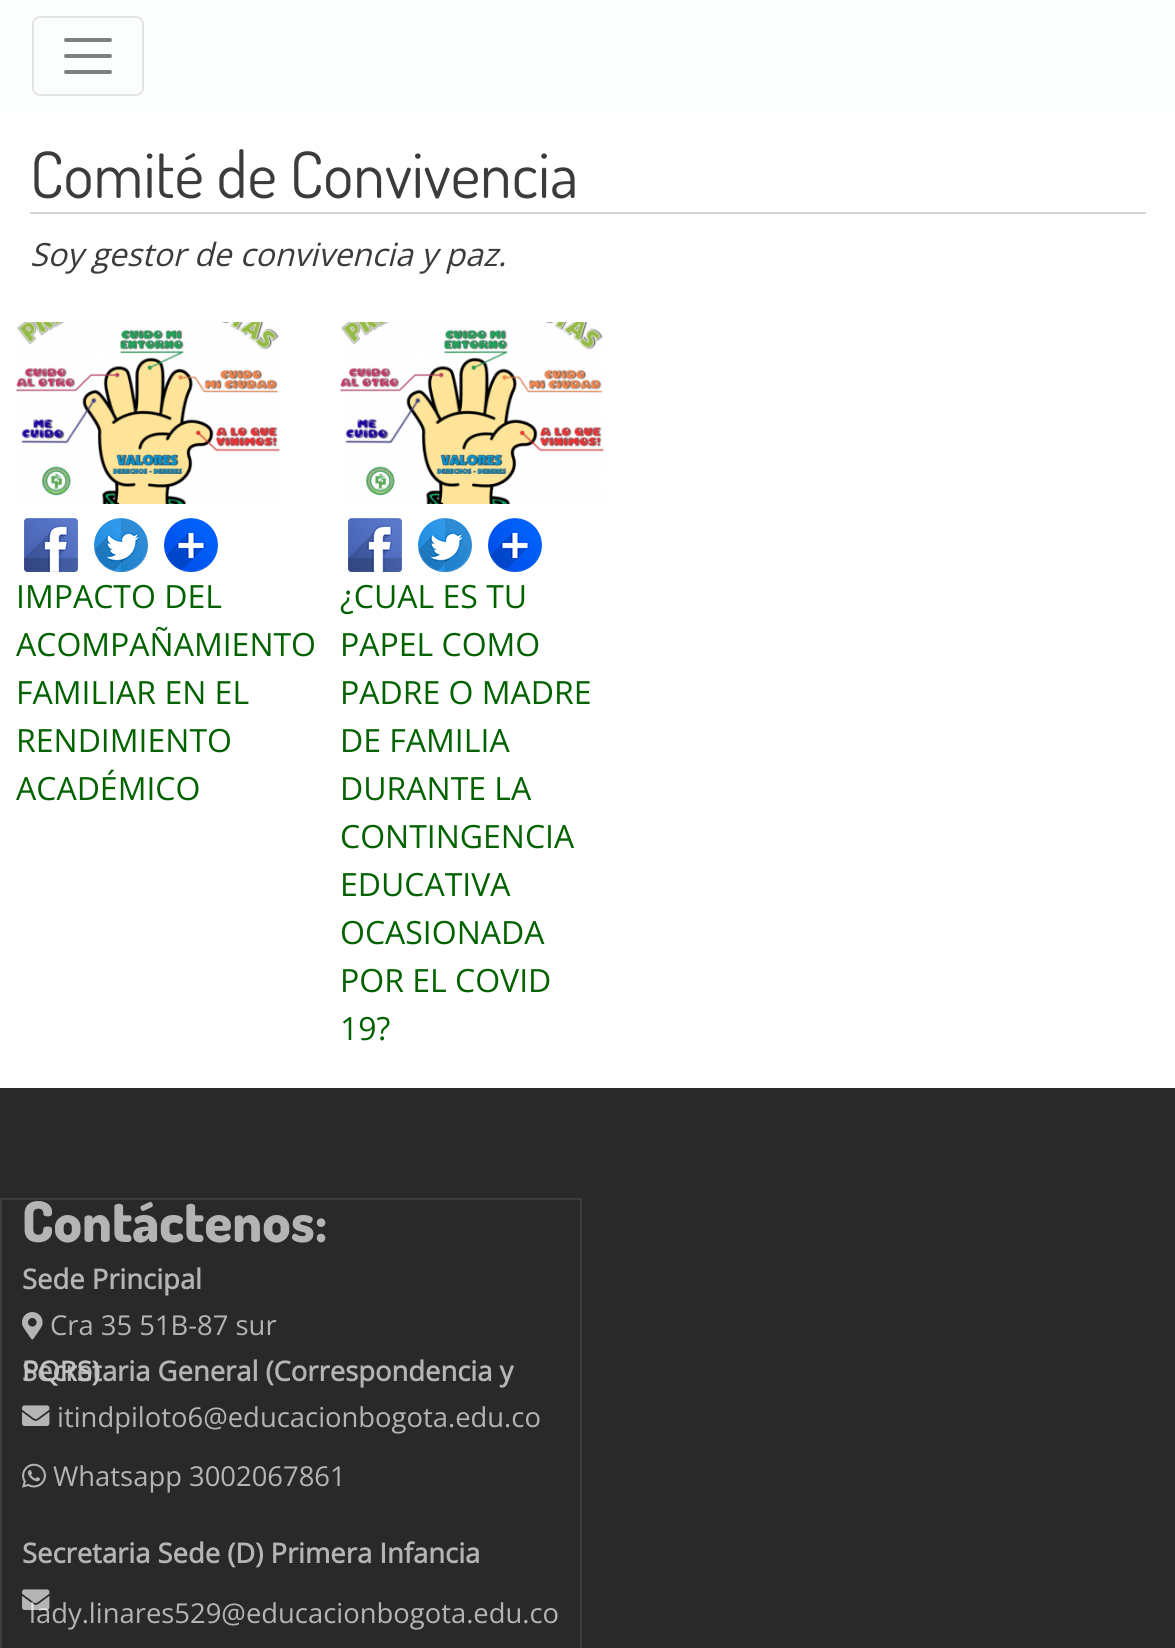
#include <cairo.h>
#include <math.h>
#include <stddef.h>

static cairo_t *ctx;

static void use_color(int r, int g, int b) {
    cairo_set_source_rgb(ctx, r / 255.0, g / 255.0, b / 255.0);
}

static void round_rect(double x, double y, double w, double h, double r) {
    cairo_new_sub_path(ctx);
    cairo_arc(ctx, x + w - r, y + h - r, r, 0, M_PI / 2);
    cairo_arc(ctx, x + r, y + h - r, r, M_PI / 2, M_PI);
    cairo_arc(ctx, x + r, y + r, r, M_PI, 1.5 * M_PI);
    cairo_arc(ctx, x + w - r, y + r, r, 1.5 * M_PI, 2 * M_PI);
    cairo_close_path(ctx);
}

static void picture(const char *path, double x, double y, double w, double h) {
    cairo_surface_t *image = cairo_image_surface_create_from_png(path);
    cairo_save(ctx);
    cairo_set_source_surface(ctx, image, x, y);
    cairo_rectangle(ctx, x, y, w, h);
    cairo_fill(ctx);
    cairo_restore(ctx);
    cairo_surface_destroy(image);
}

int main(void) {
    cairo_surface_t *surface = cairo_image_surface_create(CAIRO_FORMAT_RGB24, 1175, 1648);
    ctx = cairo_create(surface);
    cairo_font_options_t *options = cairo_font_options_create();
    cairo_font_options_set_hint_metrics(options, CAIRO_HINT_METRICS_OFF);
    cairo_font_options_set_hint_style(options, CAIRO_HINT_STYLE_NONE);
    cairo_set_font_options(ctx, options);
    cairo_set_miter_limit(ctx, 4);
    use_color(255, 255, 255);
    cairo_paint(ctx);
    use_color(252, 253, 253);
    cairo_rectangle(ctx, 0, 0, 1175, 112);
    cairo_fill(ctx);
    round_rect(33, 17, 110, 78, 7);
    use_color(227, 228, 228);
    cairo_stroke(ctx);
    cairo_new_path(ctx);
    cairo_move_to(ctx, 66, 40);
    cairo_line_to(ctx, 110, 40);
    cairo_move_to(ctx, 66, 56);
    cairo_line_to(ctx, 110, 56);
    cairo_move_to(ctx, 66, 72);
    cairo_line_to(ctx, 110, 72);
    use_color(126, 127, 127);
    cairo_set_line_width(ctx, 4);
    cairo_set_line_cap(ctx, CAIRO_LINE_CAP_ROUND);
    cairo_stroke(ctx);
    use_color(214, 214, 214);
    cairo_rectangle(ctx, 30, 212, 1116, 2);
    cairo_fill(ctx);
    cairo_select_font_face(ctx, "Dosis", CAIRO_FONT_SLANT_NORMAL, CAIRO_FONT_WEIGHT_NORMAL);
    cairo_set_font_size(ctx, 64);
    use_color(59, 59, 59);
    cairo_move_to(ctx, 30, 198);
    cairo_show_text(ctx, "Comité de Convivencia");
    cairo_select_font_face(ctx, "Open Sans", CAIRO_FONT_SLANT_ITALIC, CAIRO_FONT_WEIGHT_NORMAL);
    cairo_set_font_size(ctx, 32);
    cairo_move_to(ctx, 30, 266);
    cairo_show_text(ctx, "Soy gestor de convivencia y paz.");
    picture("img1.png", 16, 322, 264, 182);
    picture("img2.png", 24, 518, 54, 54);
    picture("img3.png", 94, 518, 54, 54);
    picture("img4.png", 164, 518, 54, 54);
    cairo_select_font_face(ctx, "Open Sans", CAIRO_FONT_SLANT_NORMAL, CAIRO_FONT_WEIGHT_NORMAL);
    use_color(2, 98, 0);
    cairo_move_to(ctx, 16, 608);
    cairo_show_text(ctx, "IMPACTO DEL");
    cairo_move_to(ctx, 16, 656);
    cairo_show_text(ctx, "ACOMPAÑAMIENTO");
    cairo_move_to(ctx, 16, 704);
    cairo_show_text(ctx, "FAMILIAR EN EL");
    cairo_move_to(ctx, 16, 752);
    cairo_show_text(ctx, "RENDIMIENTO");
    cairo_move_to(ctx, 16, 800);
    cairo_show_text(ctx, "ACADÉMICO");
    picture("img5.png", 340, 322, 264, 182);
    picture("img2.png", 348, 518, 54, 54);
    picture("img3.png", 418, 518, 54, 54);
    picture("img4.png", 488, 518, 54, 54);
    cairo_move_to(ctx, 340, 608);
    cairo_show_text(ctx, "¿CUAL ES TU");
    cairo_move_to(ctx, 340, 656);
    cairo_show_text(ctx, "PAPEL COMO");
    cairo_move_to(ctx, 340, 704);
    cairo_show_text(ctx, "PADRE O MADRE");
    cairo_move_to(ctx, 340, 752);
    cairo_show_text(ctx, "DE FAMILIA");
    cairo_move_to(ctx, 340, 800);
    cairo_show_text(ctx, "DURANTE LA");
    cairo_move_to(ctx, 340, 848);
    cairo_show_text(ctx, "CONTINGENCIA");
    cairo_move_to(ctx, 340, 896);
    cairo_show_text(ctx, "EDUCATIVA");
    cairo_move_to(ctx, 340, 944);
    cairo_show_text(ctx, "OCASIONADA");
    cairo_move_to(ctx, 340, 992);
    cairo_show_text(ctx, "POR EL COVID");
    cairo_move_to(ctx, 340, 1040);
    cairo_show_text(ctx, "19?");
    use_color(41, 41, 41);
    cairo_rectangle(ctx, 0, 1088, 1175, 560);
    cairo_fill(ctx);
    cairo_rectangle(ctx, 1, 1199, 580, 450);
    use_color(62, 62, 62);
    cairo_set_line_width(ctx, 2);
    cairo_set_line_cap(ctx, CAIRO_LINE_CAP_BUTT);
    cairo_stroke(ctx);
    cairo_select_font_face(ctx, "Dosis ExtraBold", CAIRO_FONT_SLANT_NORMAL, CAIRO_FONT_WEIGHT_NORMAL);
    cairo_set_font_size(ctx, 56);
    use_color(180, 180, 180);
    cairo_move_to(ctx, 22, 1242);
    cairo_show_text(ctx, "Contáctenos:");
    cairo_select_font_face(ctx, "Open Sans", CAIRO_FONT_SLANT_NORMAL, CAIRO_FONT_WEIGHT_BOLD);
    cairo_set_font_size(ctx, 27.4);
    cairo_move_to(ctx, 22, 1289);
    cairo_show_text(ctx, "Sede Principal");
    picture("img6.png", 22, 1312, 21, 28);
    cairo_select_font_face(ctx, "Open Sans", CAIRO_FONT_SLANT_NORMAL, CAIRO_FONT_WEIGHT_NORMAL);
    cairo_move_to(ctx, 50, 1335);
    cairo_show_text(ctx, "Cra 35 51B-87 sur");
    cairo_select_font_face(ctx, "Open Sans", CAIRO_FONT_SLANT_NORMAL, CAIRO_FONT_WEIGHT_BOLD);
    cairo_move_to(ctx, 22, 1381);
    cairo_show_text(ctx, "Secretaria General (Correspondencia y");
    use_color(194, 194, 194);
    cairo_move_to(ctx, 22, 1381);
    cairo_show_text(ctx, "PQRS)");
    picture("img7.png", 22, 1405, 28, 21);
    cairo_select_font_face(ctx, "Open Sans", CAIRO_FONT_SLANT_NORMAL, CAIRO_FONT_WEIGHT_NORMAL);
    use_color(180, 180, 180);
    cairo_move_to(ctx, 57, 1427);
    cairo_show_text(ctx, "itindpiloto6@educacionbogota.edu.co");
    picture("img8.png", 22, 1463, 24, 25);
    cairo_move_to(ctx, 53, 1486);
    cairo_show_text(ctx, "Whatsapp 3002067861");
    cairo_select_font_face(ctx, "Open Sans", CAIRO_FONT_SLANT_NORMAL, CAIRO_FONT_WEIGHT_BOLD);
    cairo_move_to(ctx, 22, 1563);
    cairo_show_text(ctx, "Secretaria Sede (D) Primera Infancia");
    cairo_select_font_face(ctx, "Open Sans", CAIRO_FONT_SLANT_NORMAL, CAIRO_FONT_WEIGHT_NORMAL);
    cairo_move_to(ctx, 29, 1623);
    cairo_show_text(ctx, "lady.linares529@educacionbogota.edu.co");
    picture("img9.png", 22, 1589, 28, 21);
    cairo_surface_write_to_png(surface, "result.png");
    cairo_font_options_destroy(options);
    cairo_destroy(ctx);
    cairo_surface_destroy(surface);
    return 0;
}
